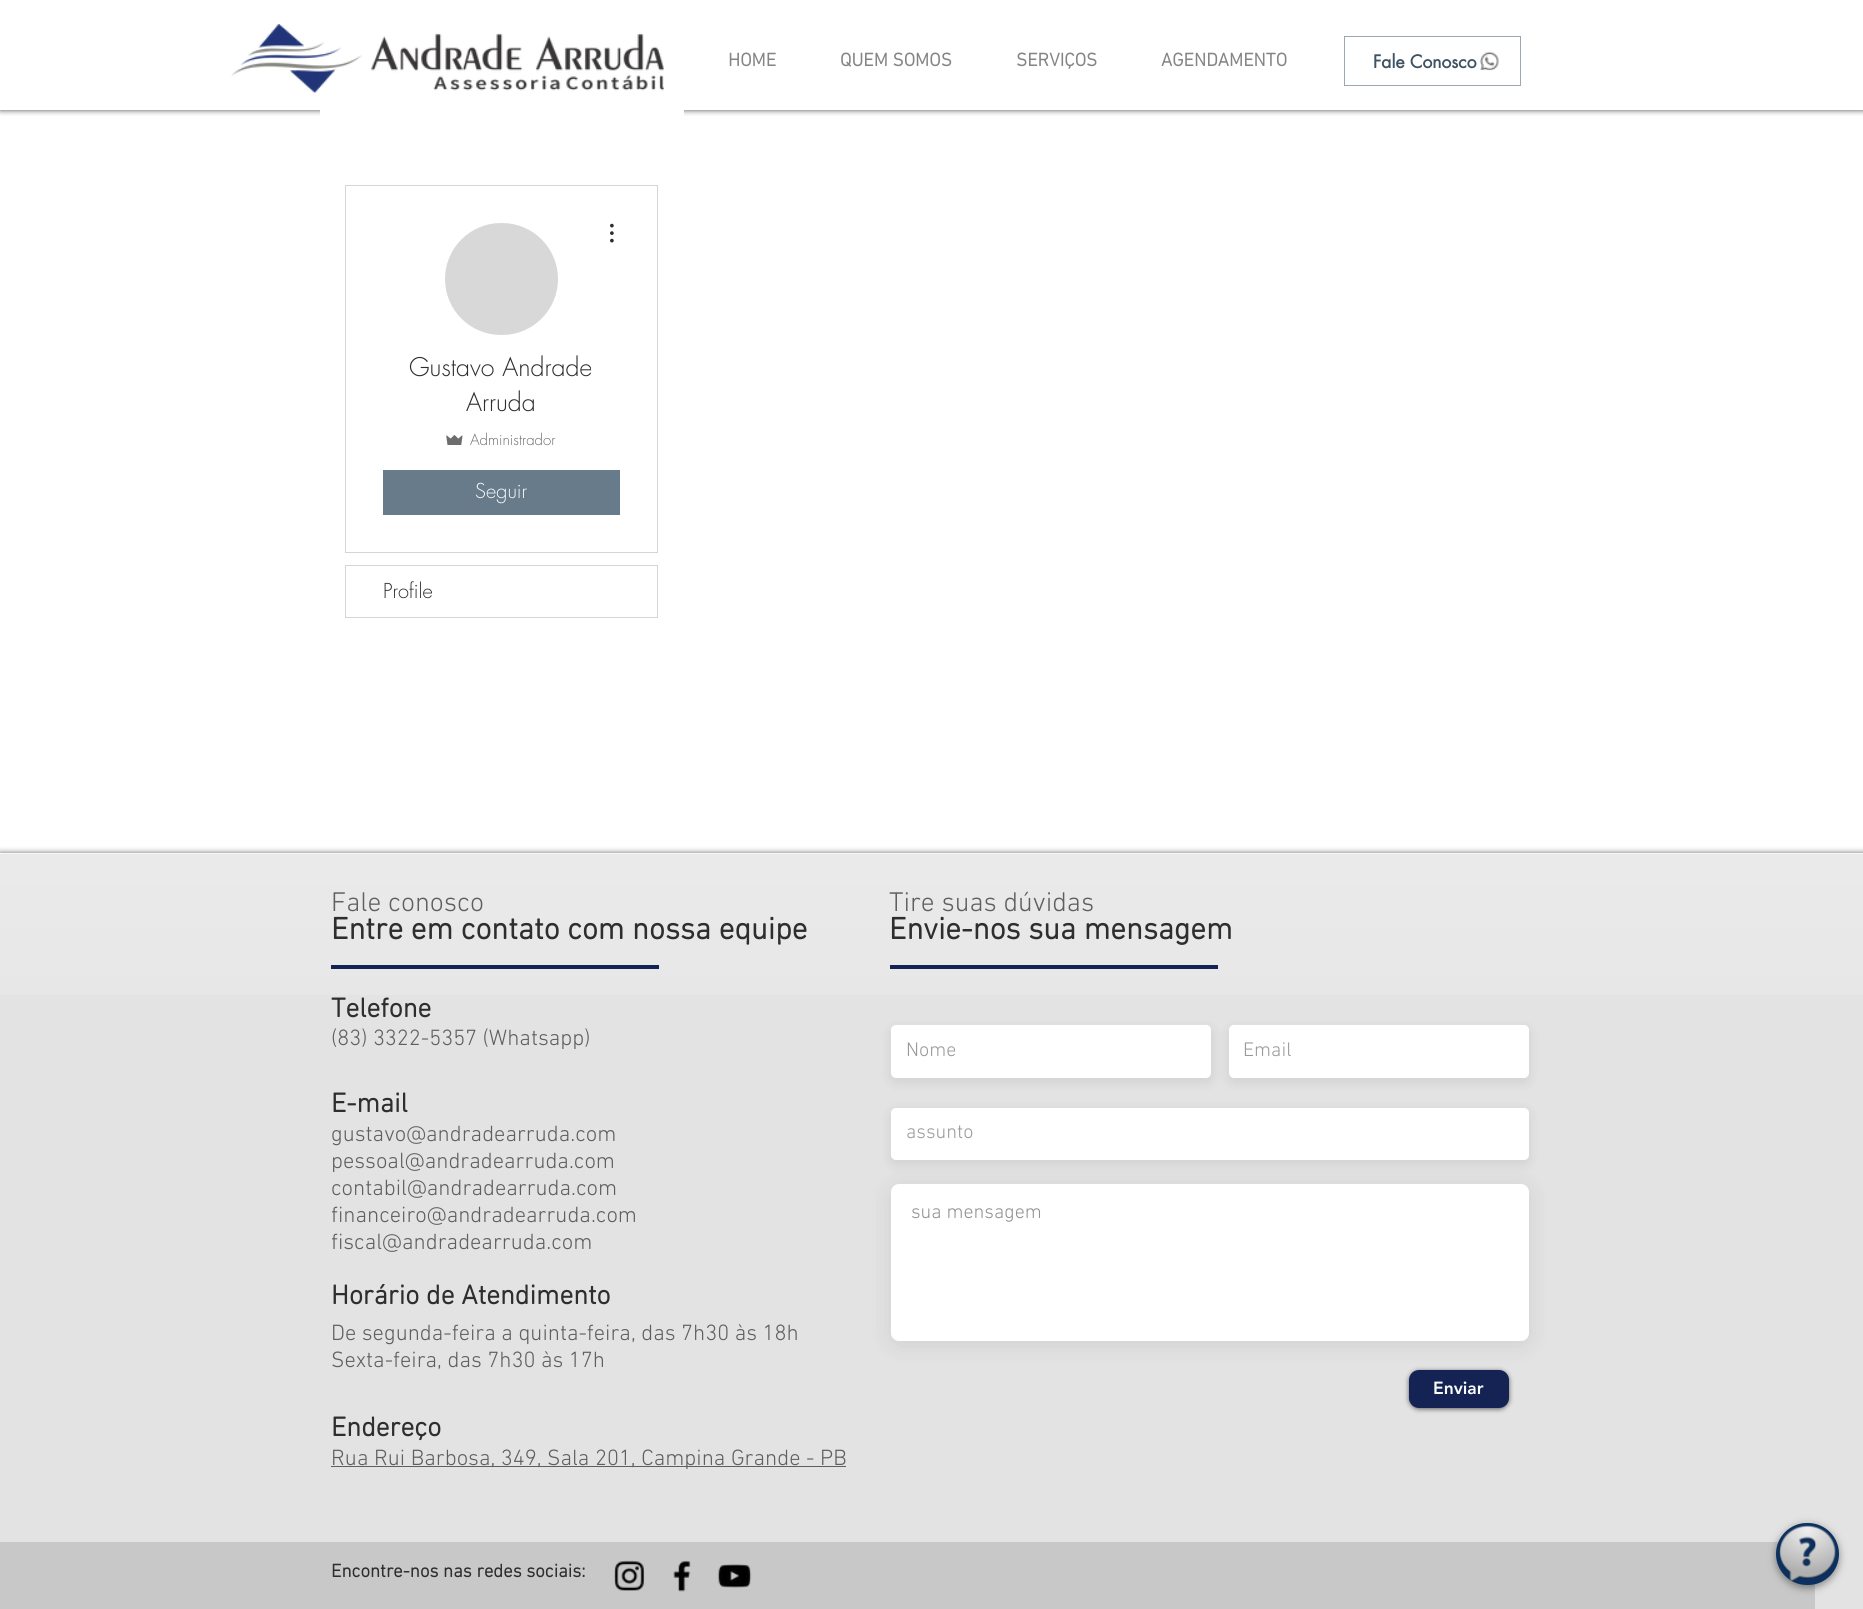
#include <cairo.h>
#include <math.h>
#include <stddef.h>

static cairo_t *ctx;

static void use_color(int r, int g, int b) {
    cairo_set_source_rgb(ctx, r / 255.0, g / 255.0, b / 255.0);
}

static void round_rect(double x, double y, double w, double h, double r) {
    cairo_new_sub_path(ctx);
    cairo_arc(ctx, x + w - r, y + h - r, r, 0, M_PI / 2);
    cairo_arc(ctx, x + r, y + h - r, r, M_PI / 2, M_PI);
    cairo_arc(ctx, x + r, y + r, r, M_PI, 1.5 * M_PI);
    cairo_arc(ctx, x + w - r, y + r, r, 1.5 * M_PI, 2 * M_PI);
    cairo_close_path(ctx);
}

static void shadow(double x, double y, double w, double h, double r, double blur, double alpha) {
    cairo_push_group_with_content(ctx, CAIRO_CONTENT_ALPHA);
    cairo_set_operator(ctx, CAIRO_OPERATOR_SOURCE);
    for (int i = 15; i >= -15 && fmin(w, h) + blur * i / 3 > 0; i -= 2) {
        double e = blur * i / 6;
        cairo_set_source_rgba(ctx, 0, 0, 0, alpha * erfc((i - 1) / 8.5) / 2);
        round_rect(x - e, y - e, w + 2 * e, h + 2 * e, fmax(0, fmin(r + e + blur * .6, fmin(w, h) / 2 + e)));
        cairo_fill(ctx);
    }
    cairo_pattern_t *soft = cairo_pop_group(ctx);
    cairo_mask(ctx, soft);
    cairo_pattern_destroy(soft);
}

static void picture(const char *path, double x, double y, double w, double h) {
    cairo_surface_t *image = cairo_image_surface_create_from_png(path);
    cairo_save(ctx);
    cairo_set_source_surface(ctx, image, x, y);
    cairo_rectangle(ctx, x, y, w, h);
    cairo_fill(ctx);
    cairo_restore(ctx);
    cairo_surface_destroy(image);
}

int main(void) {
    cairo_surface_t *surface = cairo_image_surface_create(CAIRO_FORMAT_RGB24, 1863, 1609);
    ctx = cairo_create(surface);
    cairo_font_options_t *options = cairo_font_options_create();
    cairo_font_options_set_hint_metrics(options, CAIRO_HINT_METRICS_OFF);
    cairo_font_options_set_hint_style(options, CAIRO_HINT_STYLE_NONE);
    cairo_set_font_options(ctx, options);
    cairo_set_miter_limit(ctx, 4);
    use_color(255, 255, 255);
    cairo_paint(ctx);
    cairo_save(ctx);
    cairo_rectangle(ctx, 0, 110, 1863, 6);
    cairo_clip(ctx);
    use_color(0, 0, 0);
    shadow(0, -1, 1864, 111, 0, 3, 0.7);
    cairo_restore(ctx);
    picture("img1.png", 231, 24, 433, 69);
    cairo_select_font_face(ctx, "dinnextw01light", CAIRO_FONT_SLANT_NORMAL, CAIRO_FONT_WEIGHT_BOLD);
    cairo_set_font_size(ctx, 18.75);
    use_color(133, 133, 133);
    cairo_move_to(ctx, 728, 66);
    cairo_show_text(ctx, "HOME");
    cairo_move_to(ctx, 840, 66);
    cairo_show_text(ctx, "QUEM SOMOS");
    cairo_move_to(ctx, 1016, 66);
    cairo_show_text(ctx, "SERVIÇOS");
    cairo_move_to(ctx, 1161, 66);
    cairo_show_text(ctx, "AGENDAMENTO");
    cairo_rectangle(ctx, 1344.5, 36.5, 176, 49);
    use_color(157, 167, 175);
    cairo_set_line_width(ctx, 1);
    cairo_stroke(ctx);
    cairo_select_font_face(ctx, "futura", CAIRO_FONT_SLANT_NORMAL, CAIRO_FONT_WEIGHT_BOLD);
    cairo_set_font_size(ctx, 17.5);
    use_color(62, 83, 99);
    cairo_move_to(ctx, 1373, 68);
    cairo_show_text(ctx, "Fale Conosco");
    picture("img2.png", 1480, 51, 19, 20);
    use_color(255, 255, 255);
    cairo_rectangle(ctx, 320, 110, 364, 7);
    cairo_fill(ctx);
    cairo_rectangle(ctx, 345.5, 185.5, 312, 367);
    use_color(213, 213, 213);
    cairo_stroke(ctx);
    use_color(216, 216, 216);
    round_rect(445, 223, 113, 112, 56);
    cairo_fill(ctx);
    picture("img3.png", 610, 223, 4, 20);
    cairo_select_font_face(ctx, "futura Light", CAIRO_FONT_SLANT_NORMAL, CAIRO_FONT_WEIGHT_NORMAL);
    cairo_set_font_size(ctx, 25);
    use_color(47, 46, 46);
    cairo_move_to(ctx, 409, 376);
    cairo_show_text(ctx, "Gustavo Andrade");
    cairo_move_to(ctx, 466, 411);
    cairo_show_text(ctx, "Arruda");
    picture("img4.png", 446, 435, 17, 10);
    cairo_set_font_size(ctx, 15);
    use_color(109, 109, 109);
    cairo_move_to(ctx, 470, 445);
    cairo_show_text(ctx, "Administrador");
    use_color(104, 123, 138);
    cairo_rectangle(ctx, 383, 470, 237, 45);
    cairo_fill(ctx);
    cairo_set_font_size(ctx, 20);
    use_color(250, 250, 250);
    cairo_move_to(ctx, 475, 498);
    cairo_show_text(ctx, "Seguir");
    cairo_rectangle(ctx, 345.5, 565.5, 312, 52);
    use_color(213, 213, 213);
    cairo_stroke(ctx);
    use_color(47, 46, 46);
    cairo_move_to(ctx, 383, 598);
    cairo_show_text(ctx, "Profile");
    use_color(0, 0, 0);
    shadow(0, 853, 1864, 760, 0, 3, 0.6);
    use_color(227, 227, 227);
    cairo_rectangle(ctx, 0, 854, 1863, 755);
    cairo_fill(ctx);
    picture("img5.png", 0, 854, 1863, 141);
    use_color(247, 247, 247);
    cairo_rectangle(ctx, 0, 853, 1863, 1);
    cairo_fill(ctx);
    cairo_select_font_face(ctx, "dinnextw01light Light", CAIRO_FONT_SLANT_NORMAL, CAIRO_FONT_WEIGHT_NORMAL);
    cairo_set_font_size(ctx, 27.5);
    use_color(96, 94, 94);
    cairo_move_to(ctx, 331, 911);
    cairo_show_text(ctx, "Fale conosco");
    cairo_select_font_face(ctx, "dinnextw01light", CAIRO_FONT_SLANT_NORMAL, CAIRO_FONT_WEIGHT_BOLD);
    cairo_set_font_size(ctx, 31.25);
    use_color(47, 46, 46);
    cairo_move_to(ctx, 331, 939);
    cairo_show_text(ctx, "Entre em contato com nossa equipe");
    cairo_select_font_face(ctx, "dinnextw01light Light", CAIRO_FONT_SLANT_NORMAL, CAIRO_FONT_WEIGHT_NORMAL);
    cairo_set_font_size(ctx, 27.5);
    use_color(96, 94, 94);
    cairo_move_to(ctx, 889, 911);
    cairo_show_text(ctx, "Tire suas dúvidas");
    cairo_select_font_face(ctx, "dinnextw01light", CAIRO_FONT_SLANT_NORMAL, CAIRO_FONT_WEIGHT_BOLD);
    cairo_set_font_size(ctx, 31.25);
    use_color(47, 46, 46);
    cairo_move_to(ctx, 889, 939);
    cairo_show_text(ctx, "Envie-nos sua mensagem");
    use_color(21, 35, 84);
    cairo_rectangle(ctx, 331, 965, 328, 4);
    cairo_fill(ctx);
    cairo_rectangle(ctx, 890, 965, 328, 4);
    cairo_fill(ctx);
    cairo_set_font_size(ctx, 27.5);
    use_color(47, 46, 46);
    cairo_move_to(ctx, 331, 1017);
    cairo_show_text(ctx, "Telefone");
    cairo_select_font_face(ctx, "dinnextw01light Light", CAIRO_FONT_SLANT_NORMAL, CAIRO_FONT_WEIGHT_NORMAL);
    cairo_set_font_size(ctx, 22.5);
    use_color(96, 94, 94);
    cairo_move_to(ctx, 331, 1045);
    cairo_show_text(ctx, "(83) 3322-5357 (Whatsapp)");
    cairo_select_font_face(ctx, "dinnextw01light", CAIRO_FONT_SLANT_NORMAL, CAIRO_FONT_WEIGHT_BOLD);
    cairo_set_font_size(ctx, 27.5);
    use_color(47, 46, 46);
    cairo_move_to(ctx, 331, 1112);
    cairo_show_text(ctx, "E-mail");
    use_color(0, 0, 0);
    shadow(890, 1028, 323, 55, 6, 6, 0.08);
    use_color(255, 255, 255);
    round_rect(891, 1025, 320, 53, 5);
    cairo_fill(ctx);
    cairo_select_font_face(ctx, "dinnextw01light Light", CAIRO_FONT_SLANT_NORMAL, CAIRO_FONT_WEIGHT_NORMAL);
    cairo_set_font_size(ctx, 20);
    use_color(153, 153, 153);
    cairo_move_to(ctx, 906, 1056);
    cairo_show_text(ctx, "Nome");
    use_color(0, 0, 0);
    shadow(1228, 1028, 302, 55, 6, 6, 0.08);
    use_color(255, 255, 255);
    round_rect(1229, 1025, 300, 53, 5);
    cairo_fill(ctx);
    use_color(153, 153, 153);
    cairo_move_to(ctx, 1243, 1056);
    cairo_show_text(ctx, "Email");
    use_color(0, 0, 0);
    shadow(890, 1110, 640, 55, 6, 6, 0.08);
    use_color(255, 255, 255);
    round_rect(891, 1108, 638, 52, 5);
    cairo_fill(ctx);
    use_color(153, 153, 153);
    cairo_move_to(ctx, 906, 1138);
    cairo_show_text(ctx, "assunto");
    use_color(0, 0, 0);
    shadow(890, 1186, 640, 160, 9, 12, 0.08);
    use_color(255, 255, 255);
    round_rect(891, 1184, 638, 157, 8);
    cairo_fill(ctx);
    use_color(145, 145, 145);
    cairo_move_to(ctx, 911, 1218);
    cairo_show_text(ctx, "sua mensagem");
    use_color(0, 0, 0);
    shadow(1409, 1371, 100, 38, 10, 2.5, 0.6);
    use_color(21, 35, 84);
    round_rect(1409, 1370, 100, 38, 10);
    cairo_fill(ctx);
    cairo_select_font_face(ctx, "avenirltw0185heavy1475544 Black", CAIRO_FONT_SLANT_NORMAL, CAIRO_FONT_WEIGHT_NORMAL);
    cairo_set_font_size(ctx, 17.5);
    use_color(250, 250, 250);
    cairo_move_to(ctx, 1433, 1394);
    cairo_show_text(ctx, "Enviar");
    cairo_select_font_face(ctx, "dinnextw01light Light", CAIRO_FONT_SLANT_NORMAL, CAIRO_FONT_WEIGHT_NORMAL);
    cairo_set_font_size(ctx, 22.5);
    use_color(96, 94, 94);
    cairo_move_to(ctx, 331, 1141);
    cairo_show_text(ctx, "gustavo@andradearruda.com");
    cairo_move_to(ctx, 331, 1168);
    cairo_show_text(ctx, "pessoal@andradearruda.com");
    cairo_move_to(ctx, 331, 1195);
    cairo_show_text(ctx, "contabil@andradearruda.com");
    cairo_move_to(ctx, 331, 1222);
    cairo_show_text(ctx, "financeiro@andradearruda.com");
    cairo_move_to(ctx, 331, 1249);
    cairo_show_text(ctx, "fiscal@andradearruda.com");
    cairo_select_font_face(ctx, "dinnextw01light", CAIRO_FONT_SLANT_NORMAL, CAIRO_FONT_WEIGHT_BOLD);
    cairo_set_font_size(ctx, 27.5);
    use_color(47, 46, 46);
    cairo_move_to(ctx, 331, 1304);
    cairo_show_text(ctx, "Horário de Atendimento");
    cairo_select_font_face(ctx, "dinnextw01light Light", CAIRO_FONT_SLANT_NORMAL, CAIRO_FONT_WEIGHT_NORMAL);
    cairo_set_font_size(ctx, 22.5);
    use_color(96, 94, 94);
    cairo_move_to(ctx, 331, 1340);
    cairo_show_text(ctx, "De segunda-feira a quinta-feira, das 7h30 às 18h");
    cairo_move_to(ctx, 331, 1367);
    cairo_show_text(ctx, "Sexta-feira, das 7h30 às 17h");
    cairo_select_font_face(ctx, "dinnextw01light", CAIRO_FONT_SLANT_NORMAL, CAIRO_FONT_WEIGHT_BOLD);
    cairo_set_font_size(ctx, 27.5);
    use_color(47, 46, 46);
    cairo_move_to(ctx, 331, 1436);
    cairo_show_text(ctx, "Endereço");
    use_color(96, 94, 94);
    cairo_rectangle(ctx, 331, 1466, 515, 1);
    cairo_fill(ctx);
    cairo_select_font_face(ctx, "dinnextw01light Light", CAIRO_FONT_SLANT_NORMAL, CAIRO_FONT_WEIGHT_NORMAL);
    cairo_set_font_size(ctx, 22.5);
    cairo_move_to(ctx, 331, 1465);
    cairo_show_text(ctx, "Rua Rui Barbosa, 349, Sala 201, Campina Grande - PB");
    use_color(200, 200, 200);
    cairo_rectangle(ctx, 0, 1542, 1815, 67);
    cairo_fill(ctx);
    cairo_select_font_face(ctx, "dinnextw01light", CAIRO_FONT_SLANT_NORMAL, CAIRO_FONT_WEIGHT_BOLD);
    cairo_set_font_size(ctx, 18.75);
    use_color(47, 46, 46);
    cairo_move_to(ctx, 331, 1577);
    cairo_show_text(ctx, "Encontre-nos nas redes sociais:");
    picture("img6.png", 614, 1560, 31, 31);
    picture("img7.png", 673, 1560, 18, 32);
    picture("img8.png", 717, 1564, 35, 24);
    use_color(0, 0, 0);
    shadow(1776, 1525, 63, 63, 31.5, 4, 0.4);
    use_color(12, 48, 95);
    round_rect(1776, 1523, 63, 62, 31);
    cairo_fill(ctx);
    picture("img9.png", 1779, 1525, 57, 57);
    cairo_surface_write_to_png(surface, "result.png");
    cairo_font_options_destroy(options);
    cairo_destroy(ctx);
    cairo_surface_destroy(surface);
    return 0;
}
